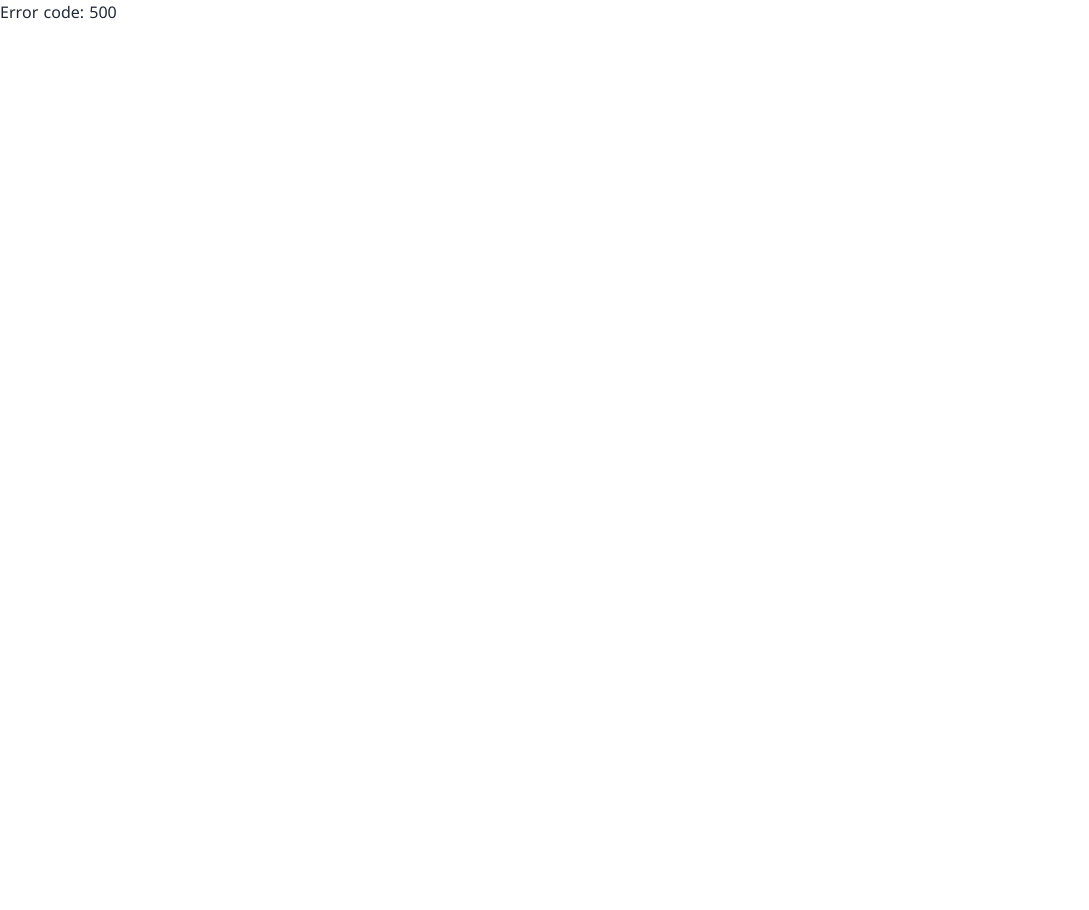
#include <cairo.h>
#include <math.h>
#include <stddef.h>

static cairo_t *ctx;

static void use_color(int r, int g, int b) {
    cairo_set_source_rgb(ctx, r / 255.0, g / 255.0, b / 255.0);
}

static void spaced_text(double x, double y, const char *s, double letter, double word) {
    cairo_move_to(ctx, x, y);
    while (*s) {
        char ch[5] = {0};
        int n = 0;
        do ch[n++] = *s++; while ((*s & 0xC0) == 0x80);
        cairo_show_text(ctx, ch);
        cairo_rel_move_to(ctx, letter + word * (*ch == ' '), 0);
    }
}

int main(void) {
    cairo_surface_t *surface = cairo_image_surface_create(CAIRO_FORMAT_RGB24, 1089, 910);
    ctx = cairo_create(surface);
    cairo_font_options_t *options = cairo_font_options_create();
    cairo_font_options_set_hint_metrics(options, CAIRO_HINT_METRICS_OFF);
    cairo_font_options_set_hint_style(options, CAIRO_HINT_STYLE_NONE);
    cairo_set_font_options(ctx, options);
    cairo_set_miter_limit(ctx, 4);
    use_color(255, 255, 255);
    cairo_paint(ctx);
    cairo_select_font_face(ctx, "Noto Sans", CAIRO_FONT_SLANT_NORMAL, CAIRO_FONT_WEIGHT_NORMAL);
    cairo_set_font_size(ctx, 16);
    use_color(31, 41, 55);
    spaced_text(0, 18, "Error code: 500", 0, 1);
    cairo_surface_write_to_png(surface, "result.png");
    cairo_font_options_destroy(options);
    cairo_destroy(ctx);
    cairo_surface_destroy(surface);
    return 0;
}
